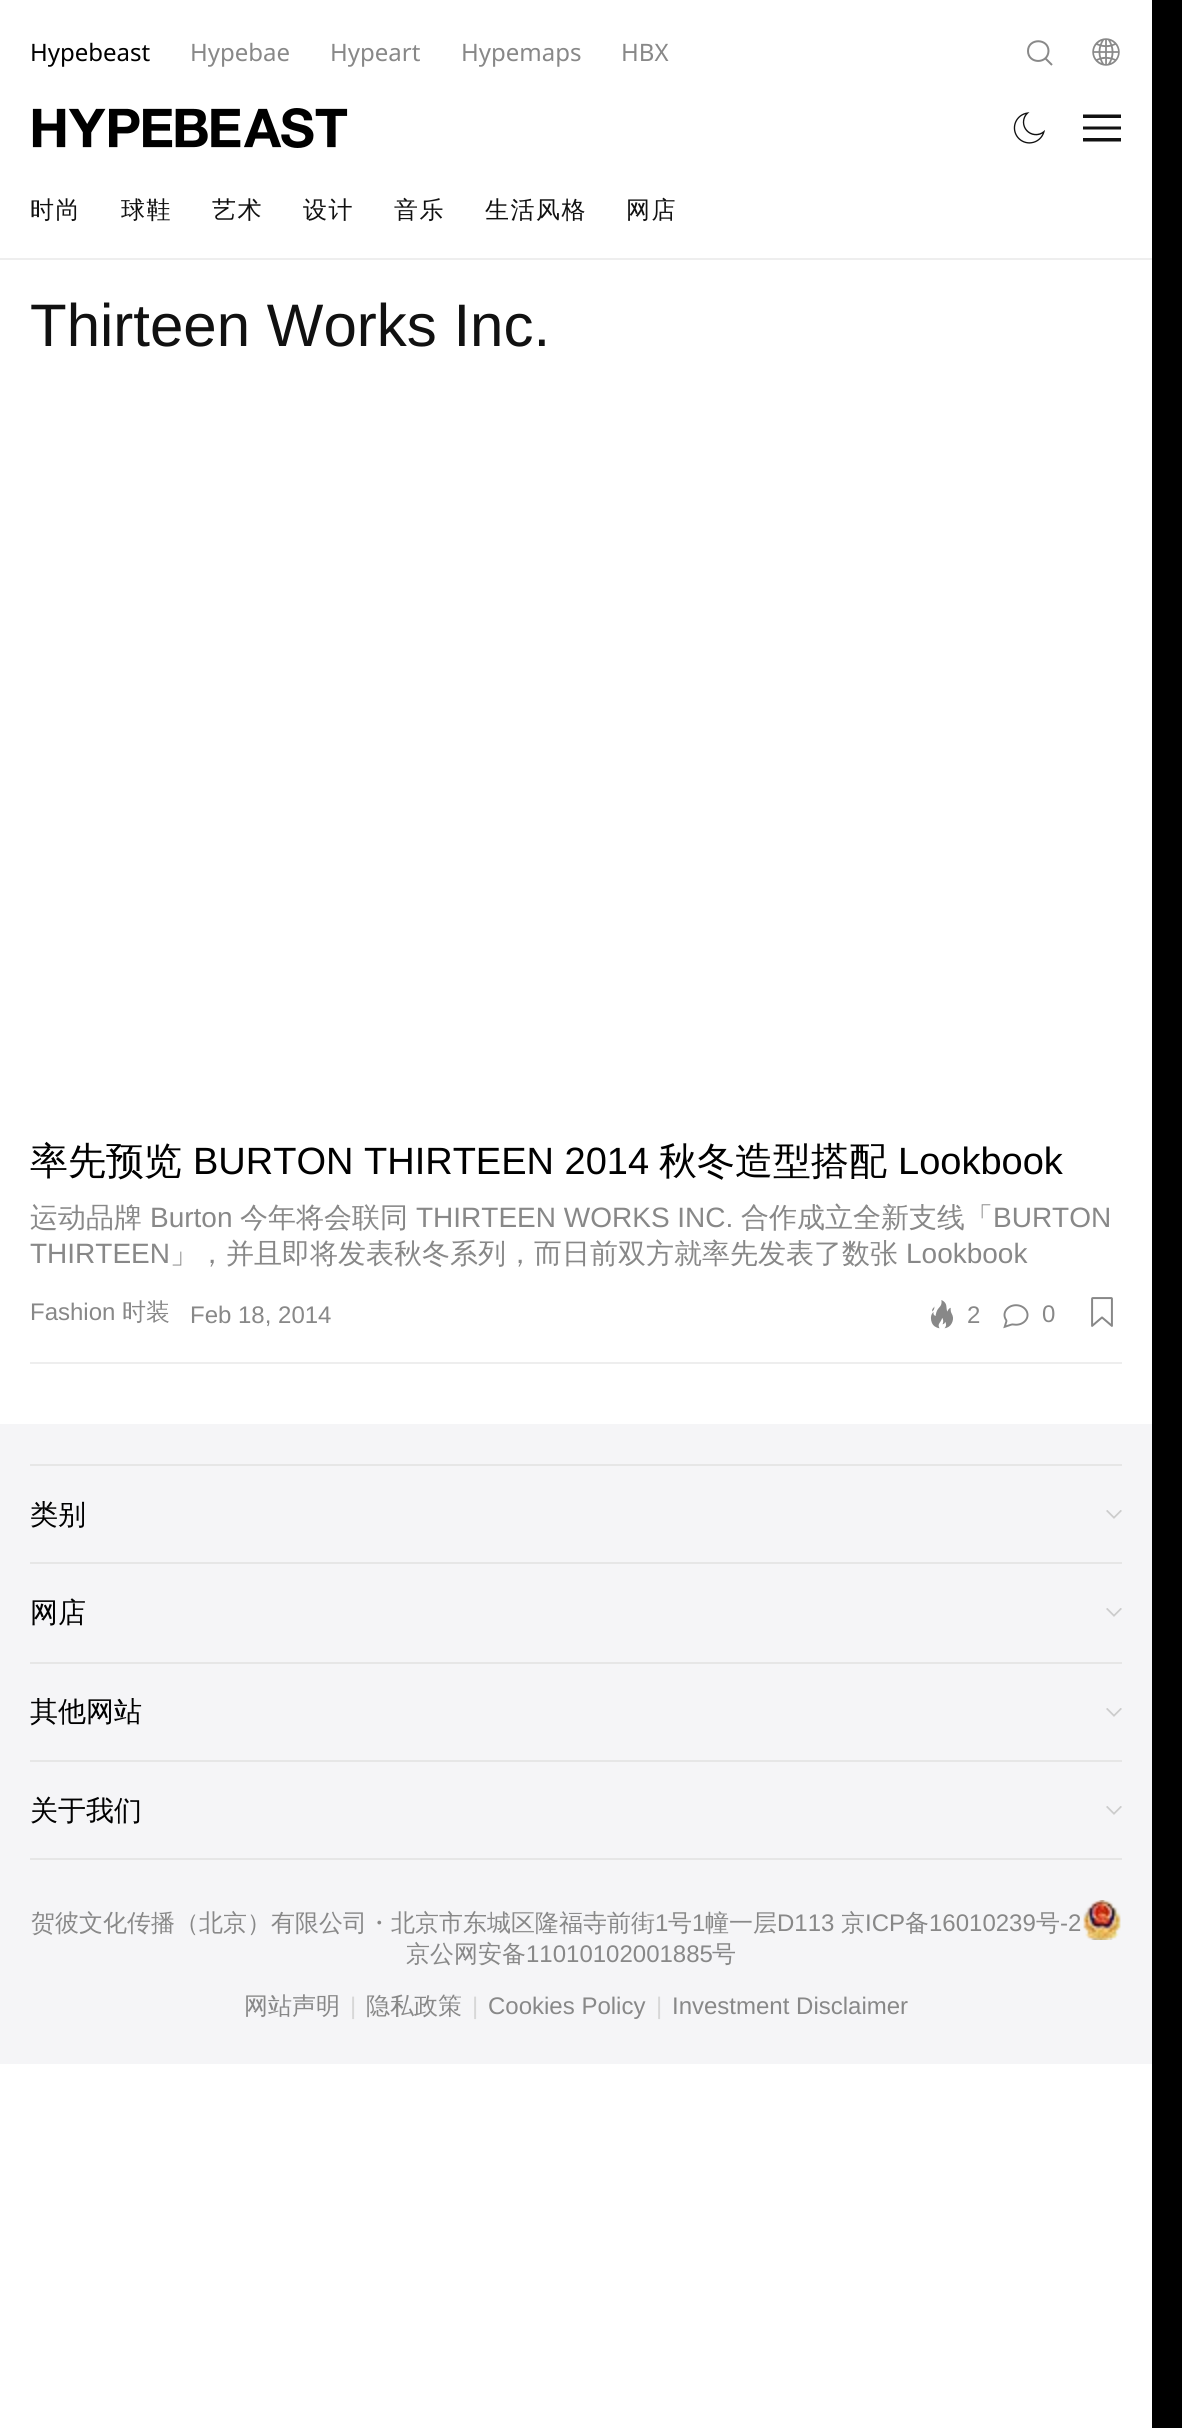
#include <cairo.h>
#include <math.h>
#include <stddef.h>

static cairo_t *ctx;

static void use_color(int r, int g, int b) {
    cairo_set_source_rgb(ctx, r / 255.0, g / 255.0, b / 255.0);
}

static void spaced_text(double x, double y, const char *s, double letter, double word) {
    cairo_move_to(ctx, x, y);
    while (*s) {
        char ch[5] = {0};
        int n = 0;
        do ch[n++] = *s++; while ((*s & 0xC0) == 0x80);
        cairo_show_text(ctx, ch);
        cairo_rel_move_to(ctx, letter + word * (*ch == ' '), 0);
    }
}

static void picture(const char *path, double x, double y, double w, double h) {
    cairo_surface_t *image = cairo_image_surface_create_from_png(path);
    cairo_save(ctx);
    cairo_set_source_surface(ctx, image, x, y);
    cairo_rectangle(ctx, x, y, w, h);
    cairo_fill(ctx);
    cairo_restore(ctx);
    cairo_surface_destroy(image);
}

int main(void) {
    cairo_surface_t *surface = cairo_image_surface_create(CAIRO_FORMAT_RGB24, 1182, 2428);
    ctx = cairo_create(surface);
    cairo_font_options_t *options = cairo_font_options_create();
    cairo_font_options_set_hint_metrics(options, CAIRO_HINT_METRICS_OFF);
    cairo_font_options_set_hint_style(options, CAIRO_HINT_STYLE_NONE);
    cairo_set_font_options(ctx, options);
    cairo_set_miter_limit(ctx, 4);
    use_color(0, 0, 0);
    cairo_paint(ctx);
    use_color(255, 255, 255);
    cairo_rectangle(ctx, 0, 0, 1152, 2428);
    cairo_fill(ctx);
    cairo_select_font_face(ctx, "Noto Sans", CAIRO_FONT_SLANT_NORMAL, CAIRO_FONT_WEIGHT_NORMAL);
    cairo_set_font_size(ctx, 24);
    use_color(0, 0, 0);
    cairo_move_to(ctx, 30, 61);
    cairo_show_text(ctx, "Hypebeast");
    use_color(136, 136, 136);
    cairo_move_to(ctx, 190, 61);
    cairo_show_text(ctx, "Hypebae");
    cairo_move_to(ctx, 330, 61);
    cairo_show_text(ctx, "Hypeart");
    cairo_move_to(ctx, 461, 61);
    cairo_show_text(ctx, "Hypemaps");
    cairo_move_to(ctx, 621, 61);
    cairo_show_text(ctx, "HBX");
    cairo_new_path(ctx);
    cairo_move_to(ctx, 1048.5, 51);
    cairo_curve_to(ctx, 1048, 64.5, 1028, 64, 1028, 51);
    cairo_curve_to(ctx, 1028, 38, 1048.5, 38, 1048.5, 51);
    cairo_close_path(ctx);
    cairo_move_to(ctx, 1045.5, 58.5);
    cairo_line_to(ctx, 1052, 65);
    use_color(137, 137, 137);
    cairo_stroke(ctx);
    picture("img1.png", 1092, 38, 28, 28);
    picture("img2.png", 32, 108, 316, 40);
    picture("img3.png", 1013, 112, 32, 32);
    use_color(17, 17, 17);
    cairo_new_path(ctx);
    cairo_move_to(ctx, 1083, 114.5);
    cairo_line_to(ctx, 1121, 114.5);
    cairo_line_to(ctx, 1121, 118);
    cairo_line_to(ctx, 1083, 118);
    cairo_close_path(ctx);
    cairo_move_to(ctx, 1083, 126.5);
    cairo_line_to(ctx, 1121, 126.5);
    cairo_line_to(ctx, 1121, 129.5);
    cairo_line_to(ctx, 1083, 129.5);
    cairo_close_path(ctx);
    cairo_move_to(ctx, 1083, 138);
    cairo_line_to(ctx, 1121, 138);
    cairo_line_to(ctx, 1121, 141.5);
    cairo_line_to(ctx, 1083, 141.5);
    cairo_close_path(ctx);
    cairo_fill(ctx);
    use_color(238, 238, 238);
    cairo_rectangle(ctx, 0, 258, 1152, 2);
    cairo_fill(ctx);
    cairo_select_font_face(ctx, "WenQuanYi Zen Hei Medium", CAIRO_FONT_SLANT_NORMAL, CAIRO_FONT_WEIGHT_NORMAL);
    use_color(17, 17, 17);
    spaced_text(30, 218, "时尚", 1.5, 0);
    spaced_text(121, 218, "球鞋", 1.5, 0);
    spaced_text(212, 218, "艺术", 1.5, 0);
    spaced_text(303, 218, "设计", 1.5, 0);
    spaced_text(394, 218, "音乐", 1.5, 0);
    spaced_text(485, 218, "生活风格", 1.5, 0);
    spaced_text(626, 218, "网店", 1.5, 0);
    cairo_select_font_face(ctx, "Liberation Sans", CAIRO_FONT_SLANT_NORMAL, CAIRO_FONT_WEIGHT_NORMAL);
    cairo_set_font_size(ctx, 60);
    cairo_move_to(ctx, 30, 346);
    cairo_show_text(ctx, "Thirteen Works Inc.");
    cairo_select_font_face(ctx, "WenQuanYi Zen Hei Medium", CAIRO_FONT_SLANT_NORMAL, CAIRO_FONT_WEIGHT_NORMAL);
    cairo_set_font_size(ctx, 38);
    use_color(0, 0, 0);
    cairo_move_to(ctx, 30, 1174);
    cairo_show_text(ctx, "率先预览");
    cairo_select_font_face(ctx, "Liberation Sans", CAIRO_FONT_SLANT_NORMAL, CAIRO_FONT_WEIGHT_NORMAL);
    cairo_move_to(ctx, 193, 1174);
    cairo_show_text(ctx, "BURTON THIRTEEN 2014");
    cairo_select_font_face(ctx, "WenQuanYi Zen Hei Medium", CAIRO_FONT_SLANT_NORMAL, CAIRO_FONT_WEIGHT_NORMAL);
    cairo_move_to(ctx, 659, 1174);
    cairo_show_text(ctx, "秋冬造型搭配");
    cairo_select_font_face(ctx, "Liberation Sans", CAIRO_FONT_SLANT_NORMAL, CAIRO_FONT_WEIGHT_NORMAL);
    cairo_move_to(ctx, 898, 1174);
    cairo_show_text(ctx, "Lookbook");
    cairo_select_font_face(ctx, "WenQuanYi Zen Hei Medium", CAIRO_FONT_SLANT_NORMAL, CAIRO_FONT_WEIGHT_NORMAL);
    cairo_set_font_size(ctx, 28);
    use_color(136, 136, 136);
    cairo_move_to(ctx, 30, 1227);
    cairo_show_text(ctx, "运动品牌");
    cairo_select_font_face(ctx, "Liberation Sans", CAIRO_FONT_SLANT_NORMAL, CAIRO_FONT_WEIGHT_NORMAL);
    cairo_move_to(ctx, 150, 1227);
    cairo_show_text(ctx, "Burton");
    cairo_select_font_face(ctx, "WenQuanYi Zen Hei Medium", CAIRO_FONT_SLANT_NORMAL, CAIRO_FONT_WEIGHT_NORMAL);
    cairo_move_to(ctx, 240, 1227);
    cairo_show_text(ctx, "今年将会联同");
    cairo_select_font_face(ctx, "Liberation Sans", CAIRO_FONT_SLANT_NORMAL, CAIRO_FONT_WEIGHT_NORMAL);
    cairo_move_to(ctx, 416, 1227);
    cairo_show_text(ctx, "THIRTEEN WORKS INC.");
    cairo_select_font_face(ctx, "WenQuanYi Zen Hei Medium", CAIRO_FONT_SLANT_NORMAL, CAIRO_FONT_WEIGHT_NORMAL);
    cairo_move_to(ctx, 741, 1227);
    cairo_show_text(ctx, "合作成立全新支线「");
    cairo_select_font_face(ctx, "Liberation Sans", CAIRO_FONT_SLANT_NORMAL, CAIRO_FONT_WEIGHT_NORMAL);
    cairo_move_to(ctx, 993, 1227);
    cairo_show_text(ctx, "BURTON");
    cairo_move_to(ctx, 30, 1263);
    cairo_show_text(ctx, "THIRTEEN");
    cairo_select_font_face(ctx, "WenQuanYi Zen Hei Medium", CAIRO_FONT_SLANT_NORMAL, CAIRO_FONT_WEIGHT_NORMAL);
    cairo_move_to(ctx, 170, 1263);
    cairo_show_text(ctx, "」，并且即将发表秋冬系列，而日前双方就率先发表了数张");
    cairo_select_font_face(ctx, "Liberation Sans", CAIRO_FONT_SLANT_NORMAL, CAIRO_FONT_WEIGHT_NORMAL);
    cairo_move_to(ctx, 906, 1263);
    cairo_show_text(ctx, "Lookbook");
    cairo_set_font_size(ctx, 24);
    cairo_move_to(ctx, 30, 1320);
    cairo_show_text(ctx, "Fashion");
    cairo_select_font_face(ctx, "WenQuanYi Zen Hei Medium", CAIRO_FONT_SLANT_NORMAL, CAIRO_FONT_WEIGHT_NORMAL);
    cairo_move_to(ctx, 122, 1320);
    cairo_show_text(ctx, "时装");
    cairo_select_font_face(ctx, "Liberation Sans", CAIRO_FONT_SLANT_NORMAL, CAIRO_FONT_WEIGHT_NORMAL);
    cairo_move_to(ctx, 190, 1323);
    cairo_show_text(ctx, "Feb 18, 2014");
    picture("img4.png", 930, 1300, 23, 29);
    cairo_move_to(ctx, 967, 1323);
    cairo_show_text(ctx, "2");
    picture("img5.png", 1003, 1304, 26, 25);
    cairo_move_to(ctx, 1042, 1322);
    cairo_show_text(ctx, "0");
    picture("img6.png", 1091, 1297, 22, 30);
    use_color(238, 238, 238);
    cairo_rectangle(ctx, 30, 1362, 1092, 2);
    cairo_fill(ctx);
    use_color(245, 245, 247);
    cairo_rectangle(ctx, 0, 1424, 1152, 640);
    cairo_fill(ctx);
    use_color(230, 230, 230);
    cairo_rectangle(ctx, 30, 1464, 1092, 2);
    cairo_fill(ctx);
    cairo_select_font_face(ctx, "WenQuanYi Zen Hei Medium", CAIRO_FONT_SLANT_NORMAL, CAIRO_FONT_WEIGHT_NORMAL);
    cairo_set_font_size(ctx, 28);
    use_color(0, 0, 0);
    cairo_move_to(ctx, 30, 1524);
    cairo_show_text(ctx, "类别");
    picture("img7.png", 1106, 1510, 16, 9);
    use_color(230, 230, 230);
    cairo_rectangle(ctx, 30, 1562, 1092, 2);
    cairo_fill(ctx);
    use_color(0, 0, 0);
    cairo_move_to(ctx, 30, 1622);
    cairo_show_text(ctx, "网店");
    picture("img7.png", 1106, 1608, 16, 9);
    use_color(230, 230, 230);
    cairo_rectangle(ctx, 30, 1662, 1092, 2);
    cairo_fill(ctx);
    use_color(0, 0, 0);
    cairo_move_to(ctx, 30, 1721);
    cairo_show_text(ctx, "其他网站");
    picture("img7.png", 1106, 1708, 16, 9);
    use_color(230, 230, 230);
    cairo_rectangle(ctx, 30, 1760, 1092, 2);
    cairo_fill(ctx);
    use_color(0, 0, 0);
    cairo_move_to(ctx, 30, 1820);
    cairo_show_text(ctx, "关于我们");
    picture("img7.png", 1106, 1806, 16, 9);
    use_color(230, 230, 230);
    cairo_rectangle(ctx, 30, 1858, 1092, 2);
    cairo_fill(ctx);
    cairo_set_font_size(ctx, 24);
    use_color(136, 136, 136);
    cairo_move_to(ctx, 31, 1931);
    cairo_show_text(ctx, "贺彼文化传播（北京）有限公司・北京市东城区隆福寺前街");
    cairo_select_font_face(ctx, "Liberation Sans", CAIRO_FONT_SLANT_NORMAL, CAIRO_FONT_WEIGHT_NORMAL);
    cairo_move_to(ctx, 655, 1931);
    cairo_show_text(ctx, "1");
    cairo_select_font_face(ctx, "WenQuanYi Zen Hei Medium", CAIRO_FONT_SLANT_NORMAL, CAIRO_FONT_WEIGHT_NORMAL);
    cairo_move_to(ctx, 668, 1931);
    cairo_show_text(ctx, "号");
    cairo_select_font_face(ctx, "Liberation Sans", CAIRO_FONT_SLANT_NORMAL, CAIRO_FONT_WEIGHT_NORMAL);
    cairo_move_to(ctx, 692, 1931);
    cairo_show_text(ctx, "1");
    cairo_select_font_face(ctx, "WenQuanYi Zen Hei Medium", CAIRO_FONT_SLANT_NORMAL, CAIRO_FONT_WEIGHT_NORMAL);
    cairo_move_to(ctx, 705, 1931);
    cairo_show_text(ctx, "幢一层");
    cairo_select_font_face(ctx, "Liberation Sans", CAIRO_FONT_SLANT_NORMAL, CAIRO_FONT_WEIGHT_NORMAL);
    cairo_move_to(ctx, 777, 1931);
    cairo_show_text(ctx, "D113");
    cairo_select_font_face(ctx, "WenQuanYi Zen Hei Medium", CAIRO_FONT_SLANT_NORMAL, CAIRO_FONT_WEIGHT_NORMAL);
    cairo_move_to(ctx, 841, 1931);
    cairo_show_text(ctx, "京");
    cairo_select_font_face(ctx, "Liberation Sans", CAIRO_FONT_SLANT_NORMAL, CAIRO_FONT_WEIGHT_NORMAL);
    cairo_move_to(ctx, 865, 1931);
    cairo_show_text(ctx, "ICP");
    cairo_select_font_face(ctx, "WenQuanYi Zen Hei Medium", CAIRO_FONT_SLANT_NORMAL, CAIRO_FONT_WEIGHT_NORMAL);
    cairo_move_to(ctx, 905, 1931);
    cairo_show_text(ctx, "备");
    cairo_select_font_face(ctx, "Liberation Sans", CAIRO_FONT_SLANT_NORMAL, CAIRO_FONT_WEIGHT_NORMAL);
    cairo_move_to(ctx, 929, 1931);
    cairo_show_text(ctx, "16010239");
    cairo_select_font_face(ctx, "WenQuanYi Zen Hei Medium", CAIRO_FONT_SLANT_NORMAL, CAIRO_FONT_WEIGHT_NORMAL);
    cairo_move_to(ctx, 1036, 1931);
    cairo_show_text(ctx, "号");
    cairo_select_font_face(ctx, "Liberation Sans", CAIRO_FONT_SLANT_NORMAL, CAIRO_FONT_WEIGHT_NORMAL);
    cairo_move_to(ctx, 1060, 1931);
    cairo_show_text(ctx, "-2");
    picture("img8.png", 1083, 1900, 38, 40);
    cairo_select_font_face(ctx, "WenQuanYi Zen Hei Medium", CAIRO_FONT_SLANT_NORMAL, CAIRO_FONT_WEIGHT_NORMAL);
    cairo_move_to(ctx, 406, 1962);
    cairo_show_text(ctx, "京公网安备");
    cairo_select_font_face(ctx, "Liberation Sans", CAIRO_FONT_SLANT_NORMAL, CAIRO_FONT_WEIGHT_NORMAL);
    cairo_move_to(ctx, 526, 1962);
    cairo_show_text(ctx, "11010102001885");
    cairo_select_font_face(ctx, "WenQuanYi Zen Hei Medium", CAIRO_FONT_SLANT_NORMAL, CAIRO_FONT_WEIGHT_NORMAL);
    cairo_move_to(ctx, 712, 1962);
    cairo_show_text(ctx, "号");
    cairo_move_to(ctx, 244, 2014);
    cairo_show_text(ctx, "网站声明");
    cairo_select_font_face(ctx, "Liberation Sans", CAIRO_FONT_SLANT_NORMAL, CAIRO_FONT_WEIGHT_NORMAL);
    use_color(215, 215, 215);
    cairo_move_to(ctx, 350, 2014);
    cairo_show_text(ctx, "|");
    cairo_select_font_face(ctx, "WenQuanYi Zen Hei Medium", CAIRO_FONT_SLANT_NORMAL, CAIRO_FONT_WEIGHT_NORMAL);
    use_color(136, 136, 136);
    cairo_move_to(ctx, 366, 2014);
    cairo_show_text(ctx, "隐私政策");
    cairo_select_font_face(ctx, "Liberation Sans", CAIRO_FONT_SLANT_NORMAL, CAIRO_FONT_WEIGHT_NORMAL);
    use_color(215, 215, 215);
    cairo_move_to(ctx, 472, 2014);
    cairo_show_text(ctx, "|");
    use_color(136, 136, 136);
    cairo_move_to(ctx, 488, 2014);
    cairo_show_text(ctx, "Cookies Policy");
    use_color(215, 215, 215);
    cairo_move_to(ctx, 656, 2014);
    cairo_show_text(ctx, "|");
    use_color(136, 136, 136);
    cairo_move_to(ctx, 672, 2014);
    cairo_show_text(ctx, "Investment Disclaimer");
    cairo_surface_write_to_png(surface, "result.png");
    cairo_font_options_destroy(options);
    cairo_destroy(ctx);
    cairo_surface_destroy(surface);
    return 0;
}
